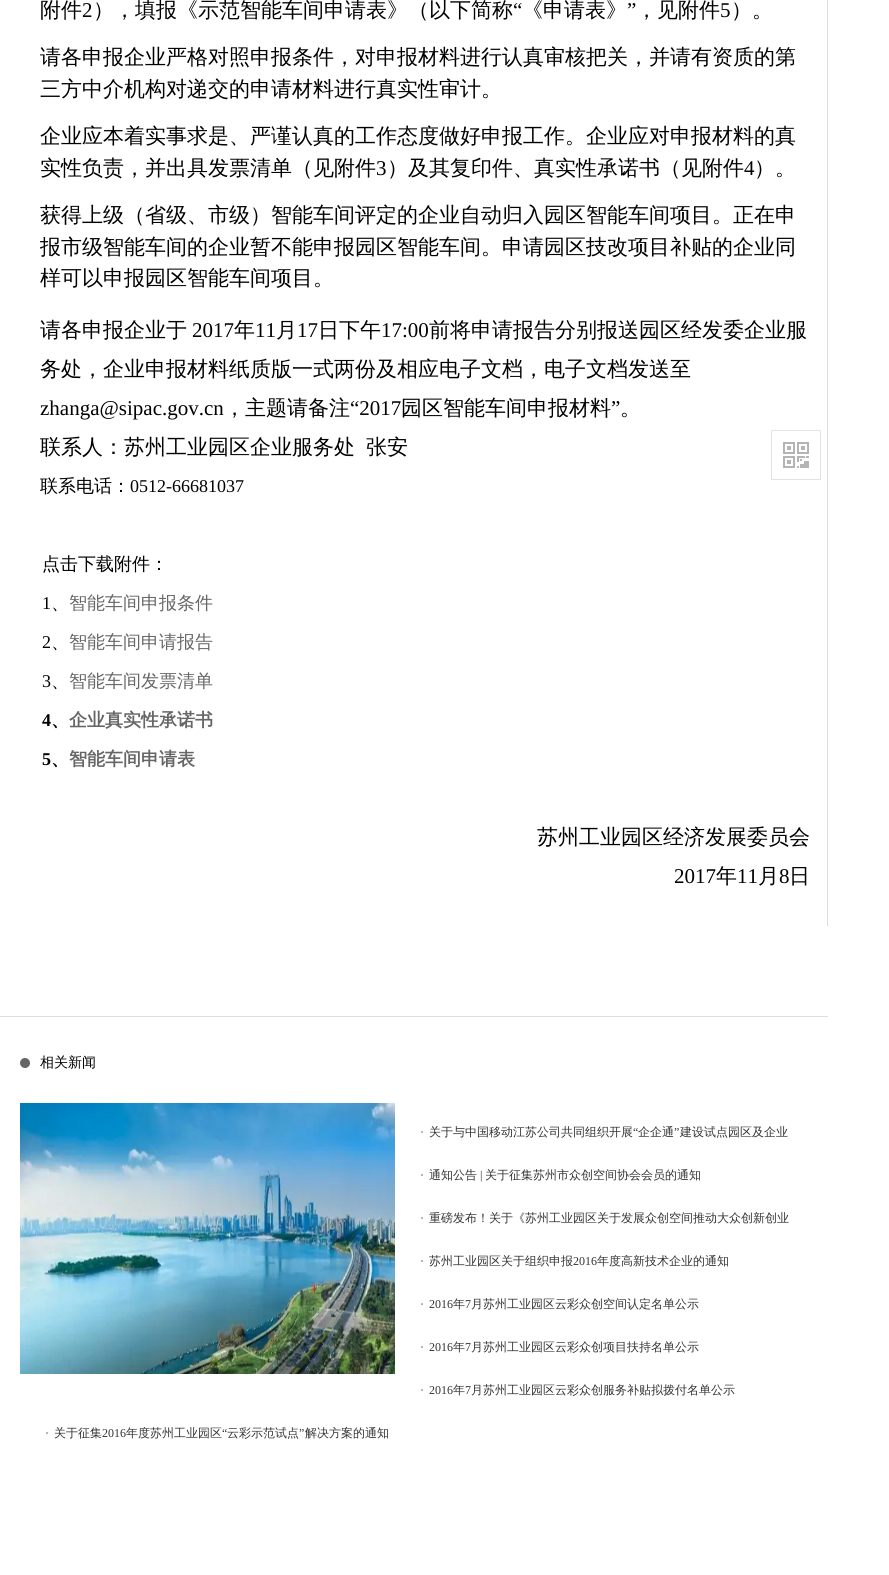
#include <cairo.h>
#include <math.h>
#include <stddef.h>

static cairo_t *ctx;

static void use_color(int r, int g, int b) {
    cairo_set_source_rgb(ctx, r / 255.0, g / 255.0, b / 255.0);
}

static void picture(const char *path, double x, double y, double w, double h) {
    cairo_surface_t *image = cairo_image_surface_create_from_png(path);
    cairo_save(ctx);
    cairo_set_source_surface(ctx, image, x, y);
    cairo_rectangle(ctx, x, y, w, h);
    cairo_fill(ctx);
    cairo_restore(ctx);
    cairo_surface_destroy(image);
}

int main(void) {
    cairo_surface_t *surface = cairo_image_surface_create(CAIRO_FORMAT_RGB24, 889, 1575);
    ctx = cairo_create(surface);
    cairo_font_options_t *options = cairo_font_options_create();
    cairo_font_options_set_hint_metrics(options, CAIRO_HINT_METRICS_OFF);
    cairo_font_options_set_hint_style(options, CAIRO_HINT_STYLE_NONE);
    cairo_set_font_options(ctx, options);
    cairo_set_miter_limit(ctx, 4);
    use_color(255, 255, 255);
    cairo_paint(ctx);
    use_color(220, 223, 224);
    cairo_rectangle(ctx, 827, 0, 1, 926);
    cairo_fill(ctx);
    cairo_select_font_face(ctx, "WenQuanYi Zen Hei Medium", CAIRO_FONT_SLANT_NORMAL, CAIRO_FONT_WEIGHT_NORMAL);
    cairo_set_font_size(ctx, 21);
    use_color(0, 0, 0);
    cairo_move_to(ctx, 40, 17);
    cairo_show_text(ctx, "附件");
    cairo_select_font_face(ctx, "Liberation Serif", CAIRO_FONT_SLANT_NORMAL, CAIRO_FONT_WEIGHT_NORMAL);
    cairo_move_to(ctx, 82, 17);
    cairo_show_text(ctx, "2");
    cairo_select_font_face(ctx, "WenQuanYi Zen Hei Medium", CAIRO_FONT_SLANT_NORMAL, CAIRO_FONT_WEIGHT_NORMAL);
    cairo_move_to(ctx, 93, 17);
    cairo_show_text(ctx, "），填报《示范智能车间申请表》（以下简称");
    cairo_select_font_face(ctx, "Liberation Serif", CAIRO_FONT_SLANT_NORMAL, CAIRO_FONT_WEIGHT_NORMAL);
    cairo_move_to(ctx, 513, 17);
    cairo_show_text(ctx, "“");
    cairo_select_font_face(ctx, "WenQuanYi Zen Hei Medium", CAIRO_FONT_SLANT_NORMAL, CAIRO_FONT_WEIGHT_NORMAL);
    cairo_move_to(ctx, 522, 17);
    cairo_show_text(ctx, "《申请表》");
    cairo_select_font_face(ctx, "Liberation Serif", CAIRO_FONT_SLANT_NORMAL, CAIRO_FONT_WEIGHT_NORMAL);
    cairo_move_to(ctx, 627, 17);
    cairo_show_text(ctx, "”");
    cairo_select_font_face(ctx, "WenQuanYi Zen Hei Medium", CAIRO_FONT_SLANT_NORMAL, CAIRO_FONT_WEIGHT_NORMAL);
    cairo_move_to(ctx, 636, 17);
    cairo_show_text(ctx, "，见附件");
    cairo_select_font_face(ctx, "Liberation Serif", CAIRO_FONT_SLANT_NORMAL, CAIRO_FONT_WEIGHT_NORMAL);
    cairo_move_to(ctx, 720, 17);
    cairo_show_text(ctx, "5");
    cairo_select_font_face(ctx, "WenQuanYi Zen Hei Medium", CAIRO_FONT_SLANT_NORMAL, CAIRO_FONT_WEIGHT_NORMAL);
    cairo_move_to(ctx, 731, 17);
    cairo_show_text(ctx, "）。");
    cairo_move_to(ctx, 40, 64);
    cairo_show_text(ctx, "请各申报企业严格对照申报条件，对申报材料进行认真审核把关，并请有资质的第");
    cairo_move_to(ctx, 40, 96);
    cairo_show_text(ctx, "三方中介机构对递交的申请材料进行真实性审计。");
    cairo_move_to(ctx, 40, 143);
    cairo_show_text(ctx, "企业应本着实事求是、严谨认真的工作态度做好申报工作。企业应对申报材料的真");
    cairo_move_to(ctx, 40, 175);
    cairo_show_text(ctx, "实性负责，并出具发票清单（见附件");
    cairo_select_font_face(ctx, "Liberation Serif", CAIRO_FONT_SLANT_NORMAL, CAIRO_FONT_WEIGHT_NORMAL);
    cairo_move_to(ctx, 376, 175);
    cairo_show_text(ctx, "3");
    cairo_select_font_face(ctx, "WenQuanYi Zen Hei Medium", CAIRO_FONT_SLANT_NORMAL, CAIRO_FONT_WEIGHT_NORMAL);
    cairo_move_to(ctx, 387, 175);
    cairo_show_text(ctx, "）及其复印件、真实性承诺书（见附件");
    cairo_select_font_face(ctx, "Liberation Serif", CAIRO_FONT_SLANT_NORMAL, CAIRO_FONT_WEIGHT_NORMAL);
    cairo_move_to(ctx, 744, 175);
    cairo_show_text(ctx, "4");
    cairo_select_font_face(ctx, "WenQuanYi Zen Hei Medium", CAIRO_FONT_SLANT_NORMAL, CAIRO_FONT_WEIGHT_NORMAL);
    cairo_move_to(ctx, 754, 175);
    cairo_show_text(ctx, "）。");
    cairo_move_to(ctx, 40, 222);
    cairo_show_text(ctx, "获得上级（省级、市级）智能车间评定的企业自动归入园区智能车间项目。正在申");
    cairo_move_to(ctx, 40, 254);
    cairo_show_text(ctx, "报市级智能车间的企业暂不能申报园区智能车间。申请园区技改项目补贴的企业同");
    cairo_move_to(ctx, 40, 285);
    cairo_show_text(ctx, "样可以申报园区智能车间项目。");
    cairo_move_to(ctx, 40, 337);
    cairo_show_text(ctx, "请各申报企业于");
    cairo_select_font_face(ctx, "Liberation Serif", CAIRO_FONT_SLANT_NORMAL, CAIRO_FONT_WEIGHT_NORMAL);
    cairo_move_to(ctx, 192, 337);
    cairo_show_text(ctx, "2017");
    cairo_select_font_face(ctx, "WenQuanYi Zen Hei Medium", CAIRO_FONT_SLANT_NORMAL, CAIRO_FONT_WEIGHT_NORMAL);
    cairo_move_to(ctx, 234, 337);
    cairo_show_text(ctx, "年");
    cairo_select_font_face(ctx, "Liberation Serif", CAIRO_FONT_SLANT_NORMAL, CAIRO_FONT_WEIGHT_NORMAL);
    cairo_move_to(ctx, 255, 337);
    cairo_show_text(ctx, "11");
    cairo_select_font_face(ctx, "WenQuanYi Zen Hei Medium", CAIRO_FONT_SLANT_NORMAL, CAIRO_FONT_WEIGHT_NORMAL);
    cairo_move_to(ctx, 276, 337);
    cairo_show_text(ctx, "月");
    cairo_select_font_face(ctx, "Liberation Serif", CAIRO_FONT_SLANT_NORMAL, CAIRO_FONT_WEIGHT_NORMAL);
    cairo_move_to(ctx, 297, 337);
    cairo_show_text(ctx, "17");
    cairo_select_font_face(ctx, "WenQuanYi Zen Hei Medium", CAIRO_FONT_SLANT_NORMAL, CAIRO_FONT_WEIGHT_NORMAL);
    cairo_move_to(ctx, 318, 337);
    cairo_show_text(ctx, "日下午");
    cairo_select_font_face(ctx, "Liberation Serif", CAIRO_FONT_SLANT_NORMAL, CAIRO_FONT_WEIGHT_NORMAL);
    cairo_move_to(ctx, 381, 337);
    cairo_show_text(ctx, "17:00");
    cairo_select_font_face(ctx, "WenQuanYi Zen Hei Medium", CAIRO_FONT_SLANT_NORMAL, CAIRO_FONT_WEIGHT_NORMAL);
    cairo_move_to(ctx, 429, 337);
    cairo_show_text(ctx, "前将申请报告分别报送园区经发委企业服");
    cairo_move_to(ctx, 40, 376);
    cairo_show_text(ctx, "务处，企业申报材料纸质版一式两份及相应电子文档，电子文档发送至");
    cairo_select_font_face(ctx, "Liberation Serif", CAIRO_FONT_SLANT_NORMAL, CAIRO_FONT_WEIGHT_NORMAL);
    cairo_move_to(ctx, 40, 415);
    cairo_show_text(ctx, "zhanga@sipac.gov.cn");
    cairo_select_font_face(ctx, "WenQuanYi Zen Hei Medium", CAIRO_FONT_SLANT_NORMAL, CAIRO_FONT_WEIGHT_NORMAL);
    cairo_move_to(ctx, 224, 415);
    cairo_show_text(ctx, "，主题请备注");
    cairo_select_font_face(ctx, "Liberation Serif", CAIRO_FONT_SLANT_NORMAL, CAIRO_FONT_WEIGHT_NORMAL);
    cairo_move_to(ctx, 350, 415);
    cairo_show_text(ctx, "“2017");
    cairo_select_font_face(ctx, "WenQuanYi Zen Hei Medium", CAIRO_FONT_SLANT_NORMAL, CAIRO_FONT_WEIGHT_NORMAL);
    cairo_move_to(ctx, 401, 415);
    cairo_show_text(ctx, "园区智能车间申报材料");
    cairo_select_font_face(ctx, "Liberation Serif", CAIRO_FONT_SLANT_NORMAL, CAIRO_FONT_WEIGHT_NORMAL);
    cairo_move_to(ctx, 611, 415);
    cairo_show_text(ctx, "”");
    cairo_select_font_face(ctx, "WenQuanYi Zen Hei Medium", CAIRO_FONT_SLANT_NORMAL, CAIRO_FONT_WEIGHT_NORMAL);
    cairo_move_to(ctx, 620, 415);
    cairo_show_text(ctx, "。");
    cairo_move_to(ctx, 40, 454);
    cairo_show_text(ctx, "联系人：苏州工业园区企业服务处");
    cairo_move_to(ctx, 366, 454);
    cairo_show_text(ctx, "张安");
    cairo_set_font_size(ctx, 18);
    cairo_move_to(ctx, 40, 492);
    cairo_show_text(ctx, "联系电话：");
    cairo_select_font_face(ctx, "Liberation Serif", CAIRO_FONT_SLANT_NORMAL, CAIRO_FONT_WEIGHT_NORMAL);
    cairo_move_to(ctx, 130, 492);
    cairo_show_text(ctx, "0512-66681037");
    cairo_select_font_face(ctx, "WenQuanYi Zen Hei Medium", CAIRO_FONT_SLANT_NORMAL, CAIRO_FONT_WEIGHT_NORMAL);
    cairo_move_to(ctx, 42, 570);
    cairo_show_text(ctx, "点击下载附件：");
    cairo_select_font_face(ctx, "Liberation Serif", CAIRO_FONT_SLANT_NORMAL, CAIRO_FONT_WEIGHT_NORMAL);
    cairo_move_to(ctx, 42, 609);
    cairo_show_text(ctx, "1");
    cairo_select_font_face(ctx, "WenQuanYi Zen Hei Medium", CAIRO_FONT_SLANT_NORMAL, CAIRO_FONT_WEIGHT_NORMAL);
    use_color(102, 102, 102);
    cairo_move_to(ctx, 69, 609);
    cairo_show_text(ctx, "智能车间申报条件");
    use_color(0, 0, 0);
    cairo_move_to(ctx, 51, 609);
    cairo_show_text(ctx, "、");
    cairo_select_font_face(ctx, "Liberation Serif", CAIRO_FONT_SLANT_NORMAL, CAIRO_FONT_WEIGHT_NORMAL);
    cairo_move_to(ctx, 42, 648);
    cairo_show_text(ctx, "2");
    cairo_select_font_face(ctx, "WenQuanYi Zen Hei Medium", CAIRO_FONT_SLANT_NORMAL, CAIRO_FONT_WEIGHT_NORMAL);
    use_color(102, 102, 102);
    cairo_move_to(ctx, 69, 648);
    cairo_show_text(ctx, "智能车间申请报告");
    use_color(0, 0, 0);
    cairo_move_to(ctx, 51, 648);
    cairo_show_text(ctx, "、");
    cairo_select_font_face(ctx, "Liberation Serif", CAIRO_FONT_SLANT_NORMAL, CAIRO_FONT_WEIGHT_NORMAL);
    cairo_move_to(ctx, 42, 687);
    cairo_show_text(ctx, "3");
    cairo_select_font_face(ctx, "WenQuanYi Zen Hei Medium", CAIRO_FONT_SLANT_NORMAL, CAIRO_FONT_WEIGHT_NORMAL);
    cairo_move_to(ctx, 51, 687);
    cairo_show_text(ctx, "、");
    use_color(102, 102, 102);
    cairo_move_to(ctx, 69, 687);
    cairo_show_text(ctx, "智能车间发票清单");
    cairo_select_font_face(ctx, "Liberation Serif", CAIRO_FONT_SLANT_NORMAL, CAIRO_FONT_WEIGHT_BOLD);
    use_color(0, 0, 0);
    cairo_move_to(ctx, 42, 726);
    cairo_show_text(ctx, "4");
    cairo_select_font_face(ctx, "WenQuanYi Zen Hei", CAIRO_FONT_SLANT_NORMAL, CAIRO_FONT_WEIGHT_BOLD);
    use_color(102, 102, 102);
    cairo_move_to(ctx, 69, 726);
    cairo_show_text(ctx, "企业真实性承诺书");
    use_color(0, 0, 0);
    cairo_move_to(ctx, 51, 726);
    cairo_show_text(ctx, "、");
    cairo_select_font_face(ctx, "Liberation Serif", CAIRO_FONT_SLANT_NORMAL, CAIRO_FONT_WEIGHT_BOLD);
    cairo_move_to(ctx, 42, 765);
    cairo_show_text(ctx, "5");
    cairo_select_font_face(ctx, "WenQuanYi Zen Hei", CAIRO_FONT_SLANT_NORMAL, CAIRO_FONT_WEIGHT_BOLD);
    cairo_move_to(ctx, 51, 765);
    cairo_show_text(ctx, "、");
    use_color(102, 102, 102);
    cairo_move_to(ctx, 69, 765);
    cairo_show_text(ctx, "智能车间申请表");
    cairo_select_font_face(ctx, "WenQuanYi Zen Hei Medium", CAIRO_FONT_SLANT_NORMAL, CAIRO_FONT_WEIGHT_NORMAL);
    cairo_set_font_size(ctx, 21);
    use_color(0, 0, 0);
    cairo_move_to(ctx, 537, 844);
    cairo_show_text(ctx, "苏州工业园区经济发展委员会");
    cairo_select_font_face(ctx, "Liberation Serif", CAIRO_FONT_SLANT_NORMAL, CAIRO_FONT_WEIGHT_NORMAL);
    cairo_move_to(ctx, 674, 883);
    cairo_show_text(ctx, "2017");
    cairo_select_font_face(ctx, "WenQuanYi Zen Hei Medium", CAIRO_FONT_SLANT_NORMAL, CAIRO_FONT_WEIGHT_NORMAL);
    cairo_move_to(ctx, 716, 883);
    cairo_show_text(ctx, "年");
    cairo_select_font_face(ctx, "Liberation Serif", CAIRO_FONT_SLANT_NORMAL, CAIRO_FONT_WEIGHT_NORMAL);
    cairo_move_to(ctx, 737, 883);
    cairo_show_text(ctx, "11");
    cairo_select_font_face(ctx, "WenQuanYi Zen Hei Medium", CAIRO_FONT_SLANT_NORMAL, CAIRO_FONT_WEIGHT_NORMAL);
    cairo_move_to(ctx, 758, 883);
    cairo_show_text(ctx, "月");
    cairo_select_font_face(ctx, "Liberation Serif", CAIRO_FONT_SLANT_NORMAL, CAIRO_FONT_WEIGHT_NORMAL);
    cairo_move_to(ctx, 779, 883);
    cairo_show_text(ctx, "8");
    cairo_select_font_face(ctx, "WenQuanYi Zen Hei Medium", CAIRO_FONT_SLANT_NORMAL, CAIRO_FONT_WEIGHT_NORMAL);
    cairo_move_to(ctx, 789, 883);
    cairo_show_text(ctx, "日");
    use_color(220, 223, 224);
    cairo_rectangle(ctx, 0, 1016, 828, 1);
    cairo_fill(ctx);
    picture("img1.png", 20, 1058, 10, 10);
    cairo_set_font_size(ctx, 14);
    use_color(0, 0, 0);
    cairo_move_to(ctx, 40, 1067);
    cairo_show_text(ctx, "相关新闻");
    picture("img2.png", 20, 1103, 375, 271);
    cairo_select_font_face(ctx, "Liberation Serif", CAIRO_FONT_SLANT_NORMAL, CAIRO_FONT_WEIGHT_NORMAL);
    cairo_set_font_size(ctx, 12);
    use_color(51, 51, 51);
    cairo_move_to(ctx, 420, 1136);
    cairo_show_text(ctx, "·");
    cairo_select_font_face(ctx, "WenQuanYi Zen Hei Medium", CAIRO_FONT_SLANT_NORMAL, CAIRO_FONT_WEIGHT_NORMAL);
    cairo_move_to(ctx, 429, 1136);
    cairo_show_text(ctx, "关于与中国移动江苏公司共同组织开展");
    cairo_select_font_face(ctx, "Liberation Serif", CAIRO_FONT_SLANT_NORMAL, CAIRO_FONT_WEIGHT_NORMAL);
    cairo_move_to(ctx, 633, 1136);
    cairo_show_text(ctx, "“");
    cairo_select_font_face(ctx, "WenQuanYi Zen Hei Medium", CAIRO_FONT_SLANT_NORMAL, CAIRO_FONT_WEIGHT_NORMAL);
    cairo_move_to(ctx, 638, 1136);
    cairo_show_text(ctx, "企企通");
    cairo_select_font_face(ctx, "Liberation Serif", CAIRO_FONT_SLANT_NORMAL, CAIRO_FONT_WEIGHT_NORMAL);
    cairo_move_to(ctx, 674, 1136);
    cairo_show_text(ctx, "”");
    cairo_select_font_face(ctx, "WenQuanYi Zen Hei Medium", CAIRO_FONT_SLANT_NORMAL, CAIRO_FONT_WEIGHT_NORMAL);
    cairo_move_to(ctx, 680, 1136);
    cairo_show_text(ctx, "建设试点园区及企业");
    cairo_select_font_face(ctx, "Liberation Serif", CAIRO_FONT_SLANT_NORMAL, CAIRO_FONT_WEIGHT_NORMAL);
    cairo_move_to(ctx, 420, 1179);
    cairo_show_text(ctx, "·");
    cairo_select_font_face(ctx, "WenQuanYi Zen Hei Medium", CAIRO_FONT_SLANT_NORMAL, CAIRO_FONT_WEIGHT_NORMAL);
    cairo_move_to(ctx, 429, 1179);
    cairo_show_text(ctx, "通知公告");
    cairo_select_font_face(ctx, "Liberation Serif", CAIRO_FONT_SLANT_NORMAL, CAIRO_FONT_WEIGHT_NORMAL);
    cairo_move_to(ctx, 480, 1179);
    cairo_show_text(ctx, "|");
    cairo_select_font_face(ctx, "WenQuanYi Zen Hei Medium", CAIRO_FONT_SLANT_NORMAL, CAIRO_FONT_WEIGHT_NORMAL);
    cairo_move_to(ctx, 485, 1179);
    cairo_show_text(ctx, "关于征集苏州市众创空间协会会员的通知");
    cairo_select_font_face(ctx, "Liberation Serif", CAIRO_FONT_SLANT_NORMAL, CAIRO_FONT_WEIGHT_NORMAL);
    cairo_move_to(ctx, 420, 1222);
    cairo_show_text(ctx, "·");
    cairo_select_font_face(ctx, "WenQuanYi Zen Hei Medium", CAIRO_FONT_SLANT_NORMAL, CAIRO_FONT_WEIGHT_NORMAL);
    cairo_move_to(ctx, 429, 1222);
    cairo_show_text(ctx, "重磅发布！关于《苏州工业园区关于发展众创空间推动大众创新创业");
    cairo_select_font_face(ctx, "Liberation Serif", CAIRO_FONT_SLANT_NORMAL, CAIRO_FONT_WEIGHT_NORMAL);
    cairo_move_to(ctx, 420, 1265);
    cairo_show_text(ctx, "·");
    cairo_select_font_face(ctx, "WenQuanYi Zen Hei Medium", CAIRO_FONT_SLANT_NORMAL, CAIRO_FONT_WEIGHT_NORMAL);
    cairo_move_to(ctx, 429, 1265);
    cairo_show_text(ctx, "苏州工业园区关于组织申报");
    cairo_select_font_face(ctx, "Liberation Serif", CAIRO_FONT_SLANT_NORMAL, CAIRO_FONT_WEIGHT_NORMAL);
    cairo_move_to(ctx, 573, 1265);
    cairo_show_text(ctx, "2016");
    cairo_select_font_face(ctx, "WenQuanYi Zen Hei Medium", CAIRO_FONT_SLANT_NORMAL, CAIRO_FONT_WEIGHT_NORMAL);
    cairo_move_to(ctx, 597, 1265);
    cairo_show_text(ctx, "年度高新技术企业的通知");
    cairo_select_font_face(ctx, "Liberation Serif", CAIRO_FONT_SLANT_NORMAL, CAIRO_FONT_WEIGHT_NORMAL);
    cairo_move_to(ctx, 420, 1308);
    cairo_show_text(ctx, "·");
    cairo_move_to(ctx, 429, 1308);
    cairo_show_text(ctx, "2016");
    cairo_select_font_face(ctx, "WenQuanYi Zen Hei Medium", CAIRO_FONT_SLANT_NORMAL, CAIRO_FONT_WEIGHT_NORMAL);
    cairo_move_to(ctx, 453, 1308);
    cairo_show_text(ctx, "年");
    cairo_select_font_face(ctx, "Liberation Serif", CAIRO_FONT_SLANT_NORMAL, CAIRO_FONT_WEIGHT_NORMAL);
    cairo_move_to(ctx, 465, 1308);
    cairo_show_text(ctx, "7");
    cairo_select_font_face(ctx, "WenQuanYi Zen Hei Medium", CAIRO_FONT_SLANT_NORMAL, CAIRO_FONT_WEIGHT_NORMAL);
    cairo_move_to(ctx, 471, 1308);
    cairo_show_text(ctx, "月苏州工业园区云彩众创空间认定名单公示");
    cairo_select_font_face(ctx, "Liberation Serif", CAIRO_FONT_SLANT_NORMAL, CAIRO_FONT_WEIGHT_NORMAL);
    cairo_move_to(ctx, 420, 1351);
    cairo_show_text(ctx, "·");
    cairo_move_to(ctx, 429, 1351);
    cairo_show_text(ctx, "2016");
    cairo_select_font_face(ctx, "WenQuanYi Zen Hei Medium", CAIRO_FONT_SLANT_NORMAL, CAIRO_FONT_WEIGHT_NORMAL);
    cairo_move_to(ctx, 453, 1351);
    cairo_show_text(ctx, "年");
    cairo_select_font_face(ctx, "Liberation Serif", CAIRO_FONT_SLANT_NORMAL, CAIRO_FONT_WEIGHT_NORMAL);
    cairo_move_to(ctx, 465, 1351);
    cairo_show_text(ctx, "7");
    cairo_select_font_face(ctx, "WenQuanYi Zen Hei Medium", CAIRO_FONT_SLANT_NORMAL, CAIRO_FONT_WEIGHT_NORMAL);
    cairo_move_to(ctx, 471, 1351);
    cairo_show_text(ctx, "月苏州工业园区云彩众创项目扶持名单公示");
    cairo_select_font_face(ctx, "Liberation Serif", CAIRO_FONT_SLANT_NORMAL, CAIRO_FONT_WEIGHT_NORMAL);
    cairo_move_to(ctx, 420, 1394);
    cairo_show_text(ctx, "·");
    cairo_move_to(ctx, 429, 1394);
    cairo_show_text(ctx, "2016");
    cairo_select_font_face(ctx, "WenQuanYi Zen Hei Medium", CAIRO_FONT_SLANT_NORMAL, CAIRO_FONT_WEIGHT_NORMAL);
    cairo_move_to(ctx, 453, 1394);
    cairo_show_text(ctx, "年");
    cairo_select_font_face(ctx, "Liberation Serif", CAIRO_FONT_SLANT_NORMAL, CAIRO_FONT_WEIGHT_NORMAL);
    cairo_move_to(ctx, 465, 1394);
    cairo_show_text(ctx, "7");
    cairo_select_font_face(ctx, "WenQuanYi Zen Hei Medium", CAIRO_FONT_SLANT_NORMAL, CAIRO_FONT_WEIGHT_NORMAL);
    cairo_move_to(ctx, 471, 1394);
    cairo_show_text(ctx, "月苏州工业园区云彩众创服务补贴拟拨付名单公示");
    cairo_select_font_face(ctx, "Liberation Serif", CAIRO_FONT_SLANT_NORMAL, CAIRO_FONT_WEIGHT_NORMAL);
    cairo_move_to(ctx, 45, 1437);
    cairo_show_text(ctx, "·");
    cairo_select_font_face(ctx, "WenQuanYi Zen Hei Medium", CAIRO_FONT_SLANT_NORMAL, CAIRO_FONT_WEIGHT_NORMAL);
    cairo_move_to(ctx, 54, 1437);
    cairo_show_text(ctx, "关于征集");
    cairo_select_font_face(ctx, "Liberation Serif", CAIRO_FONT_SLANT_NORMAL, CAIRO_FONT_WEIGHT_NORMAL);
    cairo_move_to(ctx, 102, 1437);
    cairo_show_text(ctx, "2016");
    cairo_select_font_face(ctx, "WenQuanYi Zen Hei Medium", CAIRO_FONT_SLANT_NORMAL, CAIRO_FONT_WEIGHT_NORMAL);
    cairo_move_to(ctx, 126, 1437);
    cairo_show_text(ctx, "年度苏州工业园区");
    cairo_select_font_face(ctx, "Liberation Serif", CAIRO_FONT_SLANT_NORMAL, CAIRO_FONT_WEIGHT_NORMAL);
    cairo_move_to(ctx, 222, 1437);
    cairo_show_text(ctx, "“");
    cairo_select_font_face(ctx, "WenQuanYi Zen Hei Medium", CAIRO_FONT_SLANT_NORMAL, CAIRO_FONT_WEIGHT_NORMAL);
    cairo_move_to(ctx, 227, 1437);
    cairo_show_text(ctx, "云彩示范试点");
    cairo_select_font_face(ctx, "Liberation Serif", CAIRO_FONT_SLANT_NORMAL, CAIRO_FONT_WEIGHT_NORMAL);
    cairo_move_to(ctx, 299, 1437);
    cairo_show_text(ctx, "”");
    cairo_select_font_face(ctx, "WenQuanYi Zen Hei Medium", CAIRO_FONT_SLANT_NORMAL, CAIRO_FONT_WEIGHT_NORMAL);
    cairo_move_to(ctx, 305, 1437);
    cairo_show_text(ctx, "解决方案的通知");
    picture("img3.png", 771, 430, 50, 50);
    cairo_surface_write_to_png(surface, "result.png");
    cairo_font_options_destroy(options);
    cairo_destroy(ctx);
    cairo_surface_destroy(surface);
    return 0;
}
